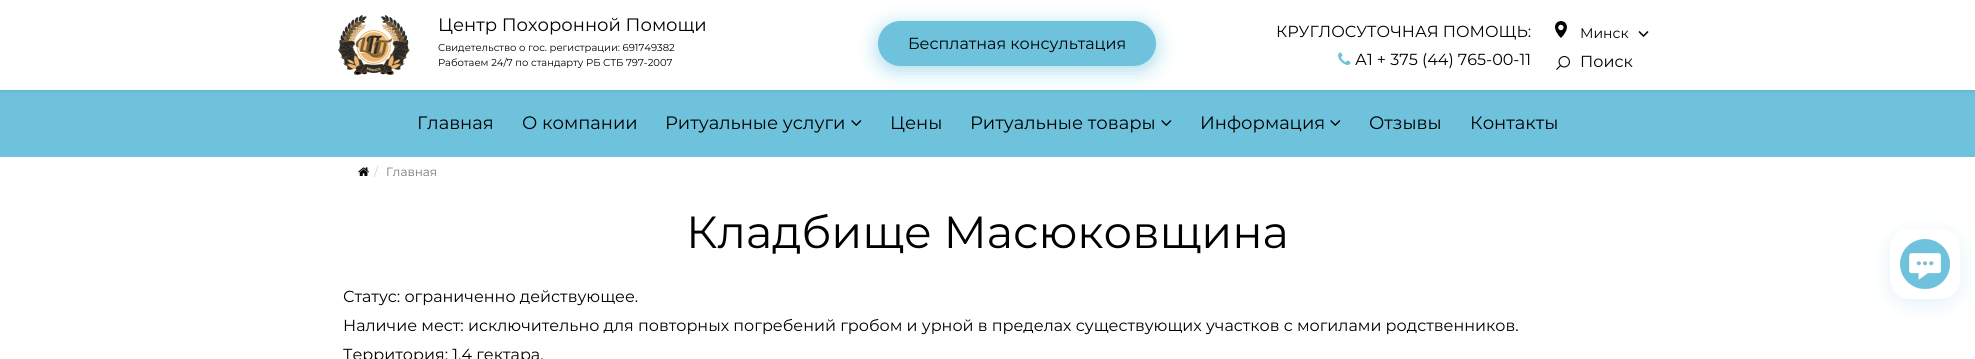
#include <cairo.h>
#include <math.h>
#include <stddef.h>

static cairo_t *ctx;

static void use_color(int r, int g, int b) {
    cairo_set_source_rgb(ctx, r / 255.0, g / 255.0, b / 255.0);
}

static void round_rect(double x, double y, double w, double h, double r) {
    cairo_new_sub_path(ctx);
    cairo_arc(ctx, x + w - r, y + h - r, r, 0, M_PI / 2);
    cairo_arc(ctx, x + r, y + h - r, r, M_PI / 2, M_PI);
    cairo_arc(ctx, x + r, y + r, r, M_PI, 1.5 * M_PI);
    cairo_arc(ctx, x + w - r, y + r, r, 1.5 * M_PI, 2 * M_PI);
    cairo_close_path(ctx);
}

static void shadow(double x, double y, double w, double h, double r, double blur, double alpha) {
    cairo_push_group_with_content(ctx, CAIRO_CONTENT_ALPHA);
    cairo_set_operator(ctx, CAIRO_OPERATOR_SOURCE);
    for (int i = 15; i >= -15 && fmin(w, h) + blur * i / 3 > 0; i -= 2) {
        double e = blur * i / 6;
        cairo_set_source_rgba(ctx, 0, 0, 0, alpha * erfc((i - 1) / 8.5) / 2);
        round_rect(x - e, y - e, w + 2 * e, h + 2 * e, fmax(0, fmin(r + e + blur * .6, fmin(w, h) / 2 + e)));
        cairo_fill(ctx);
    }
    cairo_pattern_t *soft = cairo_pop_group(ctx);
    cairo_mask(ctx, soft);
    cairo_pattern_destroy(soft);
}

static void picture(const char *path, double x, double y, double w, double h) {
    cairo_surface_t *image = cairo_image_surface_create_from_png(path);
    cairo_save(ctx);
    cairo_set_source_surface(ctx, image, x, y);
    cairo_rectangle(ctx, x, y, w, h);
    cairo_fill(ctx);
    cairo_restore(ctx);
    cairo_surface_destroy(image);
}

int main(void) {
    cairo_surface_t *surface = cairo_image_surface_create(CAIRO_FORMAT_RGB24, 1975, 359);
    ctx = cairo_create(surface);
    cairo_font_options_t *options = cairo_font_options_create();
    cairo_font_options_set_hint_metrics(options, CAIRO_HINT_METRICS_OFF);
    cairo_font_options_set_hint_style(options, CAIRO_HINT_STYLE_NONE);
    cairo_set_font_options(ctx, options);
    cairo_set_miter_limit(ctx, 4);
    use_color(255, 255, 255);
    cairo_paint(ctx);
    use_color(110, 194, 220);
    cairo_rectangle(ctx, 0, 90, 1975, 67);
    cairo_fill(ctx);
    cairo_save(ctx);
    cairo_rectangle(ctx, 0, 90, 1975, 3);
    cairo_clip(ctx);
    use_color(0, 0, 0);
    shadow(0, 3, 1975, 90, 0, 1.5, 0.05);
    cairo_restore(ctx);
    picture("img1.png", 338, 15, 72, 60);
    cairo_select_font_face(ctx, "Montserrat", CAIRO_FONT_SLANT_NORMAL, CAIRO_FONT_WEIGHT_NORMAL);
    cairo_set_font_size(ctx, 18);
    use_color(0, 0, 0);
    cairo_move_to(ctx, 438, 31);
    cairo_show_text(ctx, "Центр Похоронной Помощи");
    cairo_set_font_size(ctx, 10);
    cairo_move_to(ctx, 438, 51);
    cairo_show_text(ctx, "Свидетельство о гос. регистрации: 691749382");
    cairo_move_to(ctx, 438, 66);
    cairo_show_text(ctx, "Работаем 24/7 по стандарту РБ СТБ 797-2007");
    use_color(110, 194, 220);
    shadow(878, 25, 278, 45, 22.5, 10, 0.6);
    use_color(110, 194, 220);
    round_rect(878, 21, 278, 45, 22.5);
    cairo_fill(ctx);
    cairo_set_font_size(ctx, 16);
    use_color(0, 0, 0);
    cairo_move_to(ctx, 908, 49);
    cairo_show_text(ctx, "Бесплатная консультация");
    cairo_move_to(ctx, 1276, 37);
    cairo_show_text(ctx, "КРУГЛОСУТОЧНАЯ ПОМОЩЬ:");
    picture("img2.png", 1338, 52, 13, 13);
    cairo_move_to(ctx, 1355, 65);
    cairo_show_text(ctx, "А1 + 375 (44) 765-00-11");
    picture("img3.png", 1555, 21, 12, 17);
    cairo_set_font_size(ctx, 14);
    cairo_move_to(ctx, 1580, 38);
    cairo_show_text(ctx, "Минск");
    cairo_new_path(ctx);
    cairo_move_to(ctx, 1639, 31.5);
    cairo_line_to(ctx, 1643.5, 36);
    cairo_line_to(ctx, 1648, 31.5);
    cairo_set_line_width(ctx, 1.5);
    cairo_stroke(ctx);
    picture("img4.png", 1556, 56, 14, 14);
    cairo_set_font_size(ctx, 16);
    cairo_move_to(ctx, 1580, 67);
    cairo_show_text(ctx, "Поиск");
    cairo_set_font_size(ctx, 18);
    cairo_move_to(ctx, 417, 129);
    cairo_show_text(ctx, "Главная");
    cairo_move_to(ctx, 522, 129);
    cairo_show_text(ctx, "О компании");
    cairo_move_to(ctx, 665, 129);
    cairo_show_text(ctx, "Ритуальные услуги");
    picture("img5.png", 851, 120, 11, 6);
    cairo_move_to(ctx, 890, 129);
    cairo_show_text(ctx, "Цены");
    cairo_move_to(ctx, 970, 129);
    cairo_show_text(ctx, "Ритуальные товары");
    picture("img5.png", 1161, 120, 11, 6);
    cairo_move_to(ctx, 1200, 129);
    cairo_show_text(ctx, "Информация");
    picture("img5.png", 1330, 120, 11, 6);
    cairo_move_to(ctx, 1369, 129);
    cairo_show_text(ctx, "Отзывы");
    cairo_move_to(ctx, 1470, 129);
    cairo_show_text(ctx, "Контакты");
    picture("img6.png", 358, 167, 11, 9);
    cairo_set_font_size(ctx, 12);
    use_color(204, 204, 204);
    cairo_move_to(ctx, 374, 176);
    cairo_show_text(ctx, "/");
    use_color(119, 119, 119);
    cairo_move_to(ctx, 386, 176);
    cairo_show_text(ctx, "Главная");
    cairo_set_font_size(ctx, 45);
    use_color(0, 0, 0);
    cairo_move_to(ctx, 686, 248);
    cairo_show_text(ctx, "Кладбище Масюковщина");
    cairo_set_font_size(ctx, 16);
    cairo_move_to(ctx, 343, 302);
    cairo_show_text(ctx, "Статус: ограниченно действующее.");
    cairo_move_to(ctx, 343, 331);
    cairo_show_text(ctx, "Наличие мест: исключительно для повторных погребений гробом и урной в пределах существующих участков с могилами родственников.");
    cairo_move_to(ctx, 343, 360);
    cairo_show_text(ctx, "Территория: 1,4 гектара.");
    use_color(110, 194, 220);
    shadow(1890, 234, 70, 70, 20, 10, 0.2);
    use_color(255, 255, 255);
    round_rect(1890, 229, 70, 70, 20);
    cairo_fill(ctx);
    picture("img7.png", 1900, 239, 50, 50);
    cairo_surface_write_to_png(surface, "result.png");
    cairo_font_options_destroy(options);
    cairo_destroy(ctx);
    cairo_surface_destroy(surface);
    return 0;
}
